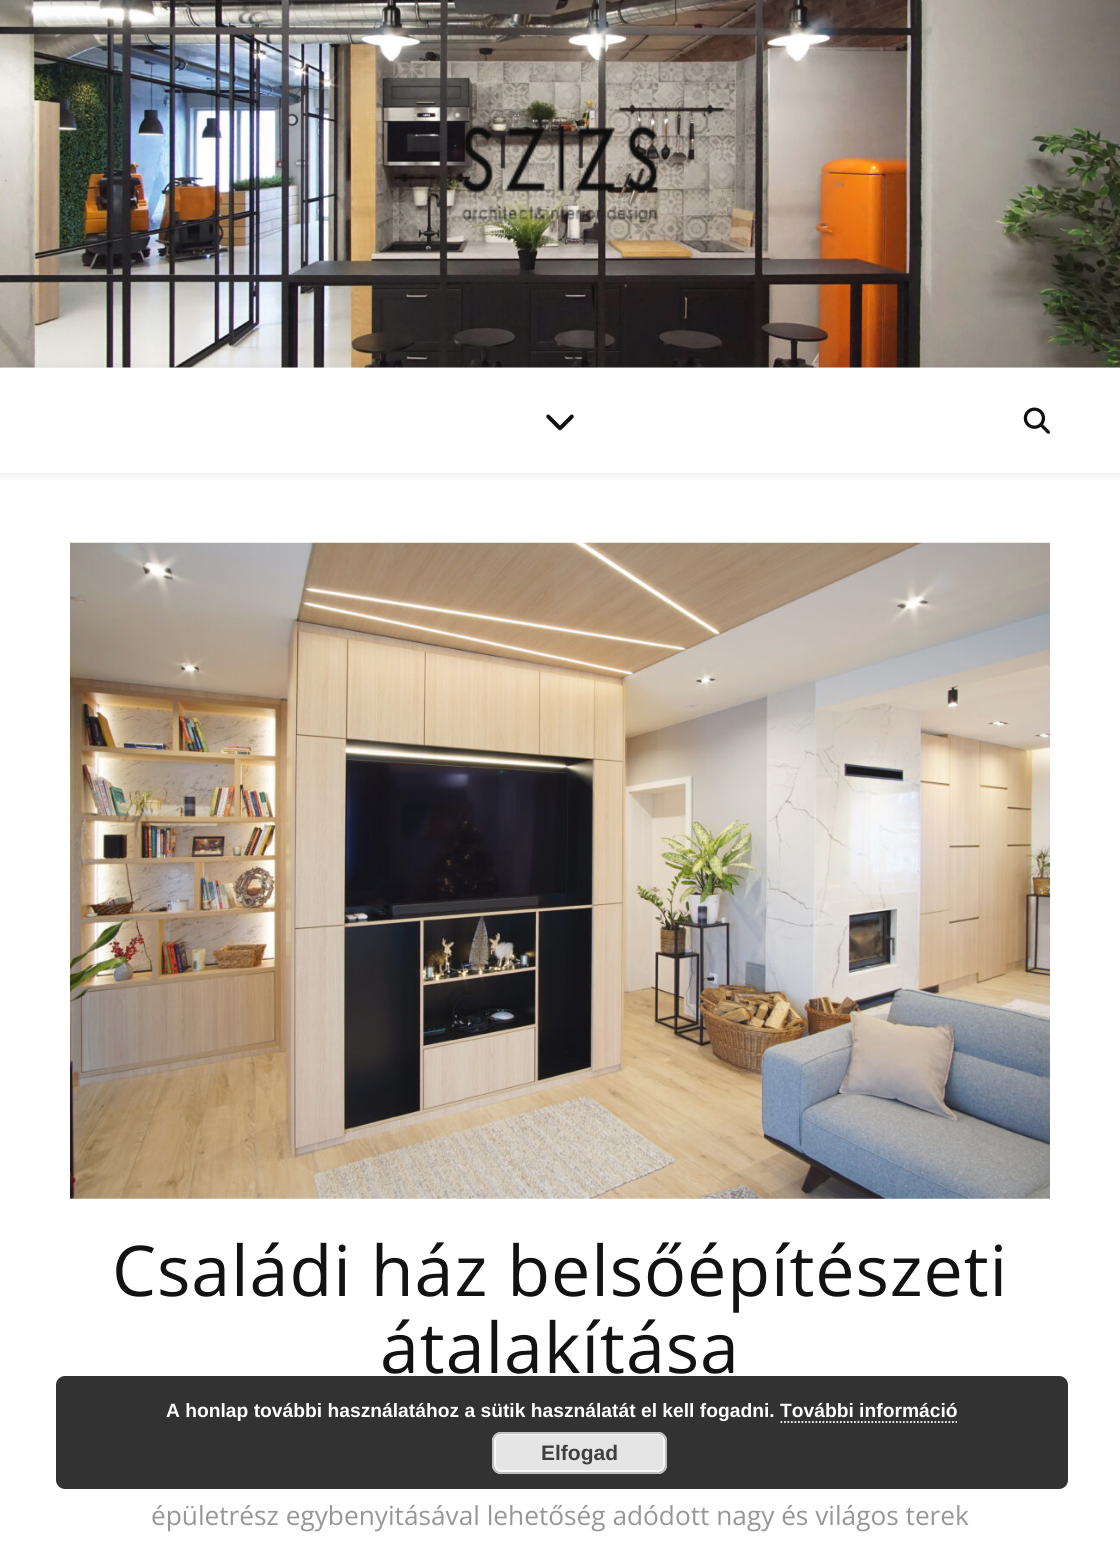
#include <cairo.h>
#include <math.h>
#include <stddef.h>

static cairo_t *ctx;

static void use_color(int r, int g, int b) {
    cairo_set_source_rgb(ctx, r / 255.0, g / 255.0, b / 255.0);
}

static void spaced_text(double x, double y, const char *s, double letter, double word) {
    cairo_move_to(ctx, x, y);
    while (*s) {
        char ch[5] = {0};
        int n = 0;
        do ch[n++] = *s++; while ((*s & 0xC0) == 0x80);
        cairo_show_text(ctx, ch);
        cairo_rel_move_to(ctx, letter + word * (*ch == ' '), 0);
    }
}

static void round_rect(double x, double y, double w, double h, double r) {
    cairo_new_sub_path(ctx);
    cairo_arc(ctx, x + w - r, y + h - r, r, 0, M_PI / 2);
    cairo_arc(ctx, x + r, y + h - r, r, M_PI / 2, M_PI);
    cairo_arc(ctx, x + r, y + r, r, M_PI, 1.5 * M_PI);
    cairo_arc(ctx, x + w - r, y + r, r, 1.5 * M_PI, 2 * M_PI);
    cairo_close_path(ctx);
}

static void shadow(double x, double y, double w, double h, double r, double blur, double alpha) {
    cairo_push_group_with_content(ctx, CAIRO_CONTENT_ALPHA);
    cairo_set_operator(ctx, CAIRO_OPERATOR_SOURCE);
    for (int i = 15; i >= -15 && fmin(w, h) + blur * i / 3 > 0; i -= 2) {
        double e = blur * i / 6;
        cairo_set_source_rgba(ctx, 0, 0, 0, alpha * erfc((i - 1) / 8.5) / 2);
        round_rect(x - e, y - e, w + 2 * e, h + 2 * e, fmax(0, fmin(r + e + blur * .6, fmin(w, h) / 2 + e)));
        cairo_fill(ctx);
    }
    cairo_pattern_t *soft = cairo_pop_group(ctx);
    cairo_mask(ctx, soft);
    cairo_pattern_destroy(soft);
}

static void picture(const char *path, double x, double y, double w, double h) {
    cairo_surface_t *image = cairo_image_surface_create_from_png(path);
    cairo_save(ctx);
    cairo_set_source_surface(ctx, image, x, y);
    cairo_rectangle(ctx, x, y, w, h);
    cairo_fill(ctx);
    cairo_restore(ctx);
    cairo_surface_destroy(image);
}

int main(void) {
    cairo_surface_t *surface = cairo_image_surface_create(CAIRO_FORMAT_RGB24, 1120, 1541);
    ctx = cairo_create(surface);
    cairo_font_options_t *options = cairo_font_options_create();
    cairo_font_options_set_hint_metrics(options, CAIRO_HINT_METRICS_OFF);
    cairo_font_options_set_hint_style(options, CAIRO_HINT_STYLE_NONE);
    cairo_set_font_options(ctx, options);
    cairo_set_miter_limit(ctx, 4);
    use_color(255, 255, 255);
    cairo_paint(ctx);
    picture("img1.png", 0, 0, 1120, 368);
    picture("img2.png", 461, 124, 198, 101);
    use_color(15, 15, 15);
    shadow(0, 369, 1120, 105, 0, 4.5, 0.1);
    use_color(255, 255, 255);
    cairo_rectangle(ctx, 0, 368, 1120, 105);
    cairo_fill(ctx);
    picture("img3.png", 546, 414, 28, 17);
    picture("img4.png", 1023, 407, 27, 27);
    picture("img5.png", 70, 542, 980, 657);
    cairo_select_font_face(ctx, "Open Sans", CAIRO_FONT_SLANT_NORMAL, CAIRO_FONT_WEIGHT_NORMAL);
    cairo_set_font_size(ctx, 70);
    use_color(18, 18, 18);
    spaced_text(112, 1296, "Családi ház belsőépítészeti", 0.9, 0);
    spaced_text(380, 1373, "átalakítása", 0.9, 0);
    cairo_set_font_size(ctx, 26.25);
    use_color(151, 151, 151);
    cairo_move_to(ctx, 151, 1525);
    cairo_show_text(ctx, "épületrész egybenyitásával lehetőség adódott nagy és világos terek");
    cairo_set_source_rgba(ctx, 0.059, 0.059, 0.059, 0.85);
    round_rect(56, 1376, 1012, 113, 9);
    cairo_fill(ctx);
    cairo_select_font_face(ctx, "Liberation Sans", CAIRO_FONT_SLANT_NORMAL, CAIRO_FONT_WEIGHT_BOLD);
    cairo_set_font_size(ctx, 19.25);
    use_color(255, 255, 255);
    cairo_move_to(ctx, 166, 1417);
    cairo_show_text(ctx, "A honlap további használatához a sütik használatát el kell fogadni. További információ");
    cairo_new_path(ctx);
    cairo_move_to(ctx, 780.5, 1422);
    cairo_line_to(ctx, 957, 1422);
    cairo_set_line_width(ctx, 1.8);
    cairo_set_dash(ctx, (double[]){1.75, 1.75}, 2, 0);
    cairo_stroke(ctx);
    use_color(229, 229, 229);
    round_rect(492, 1432, 175, 42, 9);
    cairo_fill(ctx);
    round_rect(495, 1434, 169, 37, 6);
    use_color(247, 247, 247);
    cairo_set_line_width(ctx, 2);
    cairo_set_dash(ctx, NULL, 0, 0);
    cairo_stroke(ctx);
    round_rect(493, 1433, 173, 40, 8);
    use_color(191, 191, 191);
    cairo_stroke(ctx);
    cairo_set_font_size(ctx, 21);
    use_color(63, 63, 63);
    cairo_move_to(ctx, 541, 1460);
    cairo_show_text(ctx, "Elfogad");
    cairo_surface_write_to_png(surface, "result.png");
    cairo_font_options_destroy(options);
    cairo_destroy(ctx);
    cairo_surface_destroy(surface);
    return 0;
}
